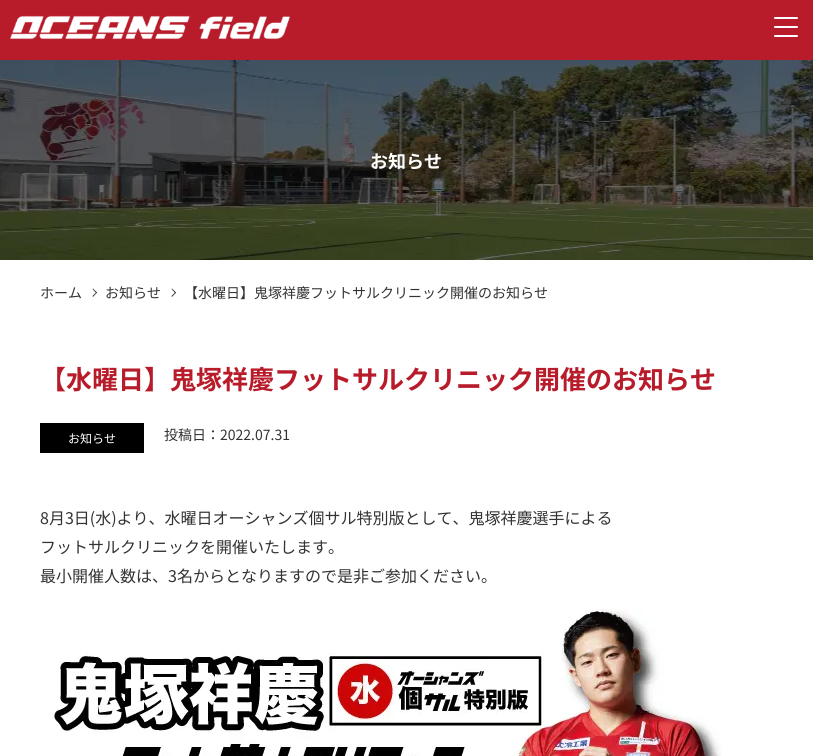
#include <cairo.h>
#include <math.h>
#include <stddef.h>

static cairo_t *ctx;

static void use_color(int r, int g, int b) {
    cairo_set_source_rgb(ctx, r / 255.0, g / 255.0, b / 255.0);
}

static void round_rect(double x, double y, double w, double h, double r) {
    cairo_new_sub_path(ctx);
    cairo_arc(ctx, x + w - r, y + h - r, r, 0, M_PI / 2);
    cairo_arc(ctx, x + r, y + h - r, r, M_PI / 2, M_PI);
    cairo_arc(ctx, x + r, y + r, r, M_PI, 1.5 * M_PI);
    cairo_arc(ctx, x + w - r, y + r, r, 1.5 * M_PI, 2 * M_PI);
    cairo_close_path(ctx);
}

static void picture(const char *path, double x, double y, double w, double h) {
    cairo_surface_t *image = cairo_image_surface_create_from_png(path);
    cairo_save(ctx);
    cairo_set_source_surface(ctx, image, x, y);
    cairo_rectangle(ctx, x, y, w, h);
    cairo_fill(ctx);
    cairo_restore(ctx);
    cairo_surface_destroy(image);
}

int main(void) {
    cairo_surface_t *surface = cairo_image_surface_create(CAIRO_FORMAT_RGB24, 813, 756);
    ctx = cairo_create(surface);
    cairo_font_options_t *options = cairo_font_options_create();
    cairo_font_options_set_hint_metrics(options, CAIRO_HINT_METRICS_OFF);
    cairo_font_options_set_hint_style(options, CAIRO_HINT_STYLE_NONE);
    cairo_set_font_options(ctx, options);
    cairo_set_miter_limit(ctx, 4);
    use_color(255, 255, 255);
    cairo_paint(ctx);
    use_color(184, 28, 43);
    cairo_rectangle(ctx, 0, 0, 813, 60);
    cairo_fill(ctx);
    picture("img1.png", 10, 15, 280, 25);
    use_color(255, 255, 255);
    round_rect(774, 17, 24, 2, 1);
    cairo_fill(ctx);
    round_rect(774, 26, 24, 2, 1);
    cairo_fill(ctx);
    round_rect(774, 35, 24, 2, 1);
    cairo_fill(ctx);
    picture("img2.png", 0, 60, 813, 200);
    cairo_select_font_face(ctx, "Noto Sans JP", CAIRO_FONT_SLANT_NORMAL, CAIRO_FONT_WEIGHT_BOLD);
    cairo_set_font_size(ctx, 18);
    cairo_move_to(ctx, 370, 168);
    cairo_show_text(ctx, "お知らせ");
    cairo_select_font_face(ctx, "Noto Sans JP", CAIRO_FONT_SLANT_NORMAL, CAIRO_FONT_WEIGHT_NORMAL);
    cairo_set_font_size(ctx, 14);
    use_color(51, 51, 51);
    cairo_move_to(ctx, 40, 298);
    cairo_show_text(ctx, "ホーム");
    cairo_new_path(ctx);
    cairo_move_to(ctx, 93, 288.5);
    cairo_line_to(ctx, 97, 292.5);
    cairo_line_to(ctx, 96.5, 293.5);
    cairo_line_to(ctx, 92.5, 289);
    cairo_close_path(ctx);
    cairo_fill(ctx);
    cairo_new_path(ctx);
    cairo_move_to(ctx, 96.5, 292);
    cairo_line_to(ctx, 97, 292.5);
    cairo_line_to(ctx, 93, 297);
    cairo_line_to(ctx, 92.5, 296);
    cairo_close_path(ctx);
    cairo_fill(ctx);
    cairo_move_to(ctx, 105, 298);
    cairo_show_text(ctx, "お知らせ");
    cairo_new_path(ctx);
    cairo_move_to(ctx, 172, 288.5);
    cairo_line_to(ctx, 176, 292.5);
    cairo_line_to(ctx, 175.5, 293.5);
    cairo_line_to(ctx, 171.5, 289);
    cairo_close_path(ctx);
    cairo_fill(ctx);
    cairo_new_path(ctx);
    cairo_move_to(ctx, 175.5, 292);
    cairo_line_to(ctx, 176, 292.5);
    cairo_line_to(ctx, 172, 297);
    cairo_line_to(ctx, 171.5, 296);
    cairo_close_path(ctx);
    cairo_fill(ctx);
    cairo_move_to(ctx, 184, 298);
    cairo_show_text(ctx, "【水曜日】鬼塚祥慶フットサルクリニック開催のお知らせ");
    cairo_select_font_face(ctx, "Noto Sans JP", CAIRO_FONT_SLANT_NORMAL, CAIRO_FONT_WEIGHT_BOLD);
    cairo_set_font_size(ctx, 26);
    use_color(184, 28, 43);
    cairo_move_to(ctx, 40, 389);
    cairo_show_text(ctx, "【水曜日】鬼塚祥慶フットサルクリニック開催のお知らせ");
    use_color(0, 0, 0);
    cairo_rectangle(ctx, 40, 423, 104, 30);
    cairo_fill(ctx);
    cairo_select_font_face(ctx, "Noto Sans JP", CAIRO_FONT_SLANT_NORMAL, CAIRO_FONT_WEIGHT_NORMAL);
    cairo_set_font_size(ctx, 12);
    use_color(255, 255, 255);
    cairo_move_to(ctx, 68, 443);
    cairo_show_text(ctx, "お知らせ");
    cairo_set_font_size(ctx, 14);
    use_color(51, 51, 51);
    cairo_move_to(ctx, 164, 440);
    cairo_show_text(ctx, "投稿日：2022.07.31");
    cairo_set_font_size(ctx, 16);
    cairo_move_to(ctx, 40, 524);
    cairo_show_text(ctx, "8月3日(水)より、水曜日オーシャンズ個サル特別版として、鬼塚祥慶選手による");
    cairo_move_to(ctx, 40, 553);
    cairo_show_text(ctx, "フットサルクリニックを開催いたします。");
    cairo_move_to(ctx, 40, 582);
    cairo_show_text(ctx, "最小開催人数は、3名からとなりますので是非ご参加ください。");
    picture("img3.png", 52, 609, 670, 147);
    cairo_surface_write_to_png(surface, "result.png");
    cairo_font_options_destroy(options);
    cairo_destroy(ctx);
    cairo_surface_destroy(surface);
    return 0;
}
